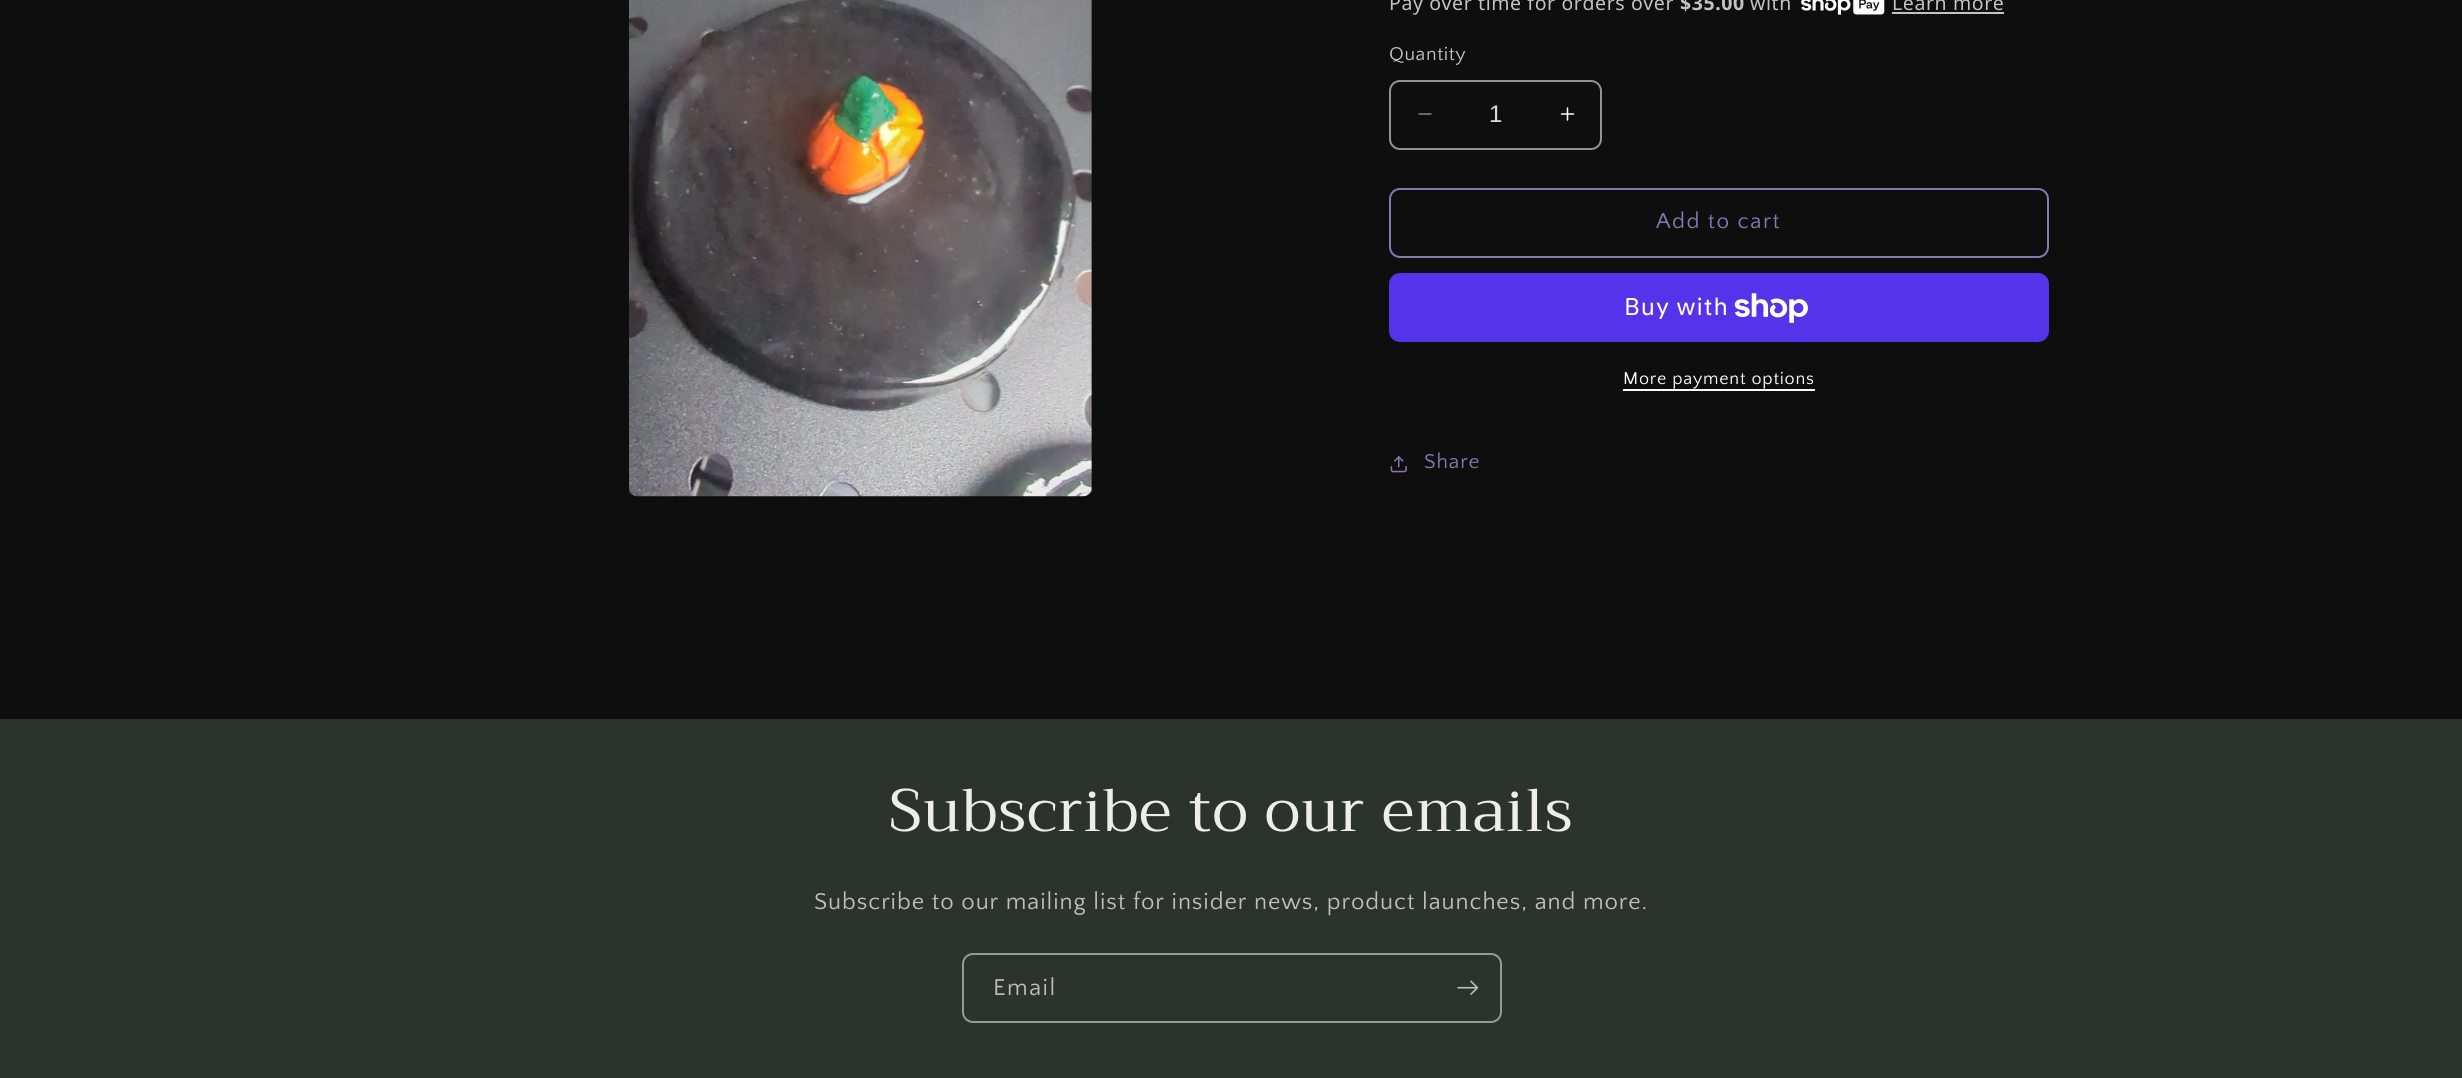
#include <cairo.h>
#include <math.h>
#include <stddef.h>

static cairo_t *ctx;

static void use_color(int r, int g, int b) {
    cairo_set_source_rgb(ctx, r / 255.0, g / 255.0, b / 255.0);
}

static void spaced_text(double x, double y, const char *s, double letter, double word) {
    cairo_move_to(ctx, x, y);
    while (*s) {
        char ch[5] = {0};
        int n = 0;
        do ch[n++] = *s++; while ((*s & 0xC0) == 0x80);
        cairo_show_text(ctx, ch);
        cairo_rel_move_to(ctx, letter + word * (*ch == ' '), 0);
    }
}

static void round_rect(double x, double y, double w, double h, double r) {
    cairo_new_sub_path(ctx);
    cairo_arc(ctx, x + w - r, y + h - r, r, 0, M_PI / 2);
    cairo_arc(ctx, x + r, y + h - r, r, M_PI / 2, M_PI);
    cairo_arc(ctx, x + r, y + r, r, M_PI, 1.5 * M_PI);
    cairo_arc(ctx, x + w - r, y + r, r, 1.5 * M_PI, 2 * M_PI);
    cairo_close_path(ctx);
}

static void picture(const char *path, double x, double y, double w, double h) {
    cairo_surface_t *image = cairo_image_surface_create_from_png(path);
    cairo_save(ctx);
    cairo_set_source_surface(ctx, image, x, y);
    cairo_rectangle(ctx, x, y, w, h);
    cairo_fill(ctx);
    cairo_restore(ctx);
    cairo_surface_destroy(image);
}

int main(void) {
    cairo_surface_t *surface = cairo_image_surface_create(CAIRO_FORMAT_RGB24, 2462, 1078);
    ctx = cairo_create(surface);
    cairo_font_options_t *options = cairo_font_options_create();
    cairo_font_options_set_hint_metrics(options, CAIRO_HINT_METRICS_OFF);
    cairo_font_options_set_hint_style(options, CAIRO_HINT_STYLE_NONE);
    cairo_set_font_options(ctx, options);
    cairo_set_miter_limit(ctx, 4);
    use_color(14, 14, 14);
    cairo_paint(ctx);
    picture("img1.png", 629, 0, 463, 497);
    cairo_select_font_face(ctx, "Noto Sans", CAIRO_FONT_SLANT_NORMAL, CAIRO_FONT_WEIGHT_NORMAL);
    cairo_set_font_size(ctx, 19.5);
    use_color(195, 195, 195);
    spaced_text(1389, 10, "Pay over time for orders over", 0.6, 0);
    cairo_select_font_face(ctx, "Noto Sans", CAIRO_FONT_SLANT_NORMAL, CAIRO_FONT_WEIGHT_BOLD);
    spaced_text(1680, 10, "$35.00", 0.6, 0);
    cairo_select_font_face(ctx, "Noto Sans", CAIRO_FONT_SLANT_NORMAL, CAIRO_FONT_WEIGHT_NORMAL);
    spaced_text(1750, 10, "with", 0.6, 0);
    picture("img2.png", 1801, 0, 84, 15);
    spaced_text(1892, 10, "Learn more", 0.6, 0);
    cairo_rectangle(ctx, 1892, 12, 112, 2);
    cairo_fill(ctx);
    cairo_select_font_face(ctx, "Quattrocento Sans", CAIRO_FONT_SLANT_NORMAL, CAIRO_FONT_WEIGHT_NORMAL);
    spaced_text(1389, 60, "Quantity", 0.6, 0);
    picture("img3.png", 1418, 113, 14, 2);
    picture("img4.png", 1560, 107, 15, 14);
    round_rect(1390, 81, 211, 68, 10);
    use_color(147, 147, 147);
    cairo_stroke(ctx);
    cairo_select_font_face(ctx, "Liberation Sans", CAIRO_FONT_SLANT_NORMAL, CAIRO_FONT_WEIGHT_NORMAL);
    cairo_set_font_size(ctx, 24);
    use_color(219, 219, 219);
    cairo_move_to(ctx, 1489, 122);
    cairo_show_text(ctx, "1");
    round_rect(1390, 189, 658, 68, 10);
    use_color(137, 119, 177);
    cairo_stroke(ctx);
    cairo_select_font_face(ctx, "Quattrocento Sans", CAIRO_FONT_SLANT_NORMAL, CAIRO_FONT_WEIGHT_NORMAL);
    cairo_set_font_size(ctx, 22.5);
    spaced_text(1656, 228, "Add to cart", 1.5, 0);
    use_color(84, 51, 235);
    round_rect(1389, 273, 660, 69, 11);
    cairo_fill(ctx);
    cairo_select_font_face(ctx, "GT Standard", CAIRO_FONT_SLANT_NORMAL, CAIRO_FONT_WEIGHT_NORMAL);
    cairo_set_font_size(ctx, 24);
    use_color(255, 255, 255);
    spaced_text(1624, 315, "Buy with", 0.9, 0);
    picture("img5.png", 1734, 293, 74, 30);
    cairo_select_font_face(ctx, "Quattrocento Sans", CAIRO_FONT_SLANT_NORMAL, CAIRO_FONT_WEIGHT_NORMAL);
    cairo_set_font_size(ctx, 18);
    spaced_text(1623, 384, "More payment options", 0.75, 0);
    cairo_rectangle(ctx, 1623, 389, 192, 2);
    cairo_fill(ctx);
    picture("img6.png", 1390, 456, 17, 17);
    cairo_set_font_size(ctx, 21);
    use_color(137, 119, 177);
    spaced_text(1424, 468, "Share", 0.9, 0);
    use_color(44, 51, 47);
    cairo_rectangle(ctx, 0, 719, 2462, 359);
    cairo_fill(ctx);
    cairo_select_font_face(ctx, "Trirong", CAIRO_FONT_SLANT_NORMAL, CAIRO_FONT_WEIGHT_NORMAL);
    cairo_set_font_size(ctx, 60);
    use_color(239, 236, 236);
    spaced_text(889, 831, "Subscribe to our emails", 0.9, 0);
    cairo_select_font_face(ctx, "Quattrocento Sans", CAIRO_FONT_SLANT_NORMAL, CAIRO_FONT_WEIGHT_NORMAL);
    cairo_set_font_size(ctx, 24);
    use_color(190, 190, 189);
    spaced_text(814, 909, "Subscribe to our mailing list for insider news, product launches, and more.", 0.9, 0);
    round_rect(963, 954, 538, 68, 10);
    use_color(151, 153, 151);
    cairo_stroke(ctx);
    use_color(190, 190, 189);
    spaced_text(993, 995, "Email", 1.5, 0);
    picture("img7.png", 1457, 980, 22, 15);
    cairo_surface_write_to_png(surface, "result.png");
    cairo_font_options_destroy(options);
    cairo_destroy(ctx);
    cairo_surface_destroy(surface);
    return 0;
}
